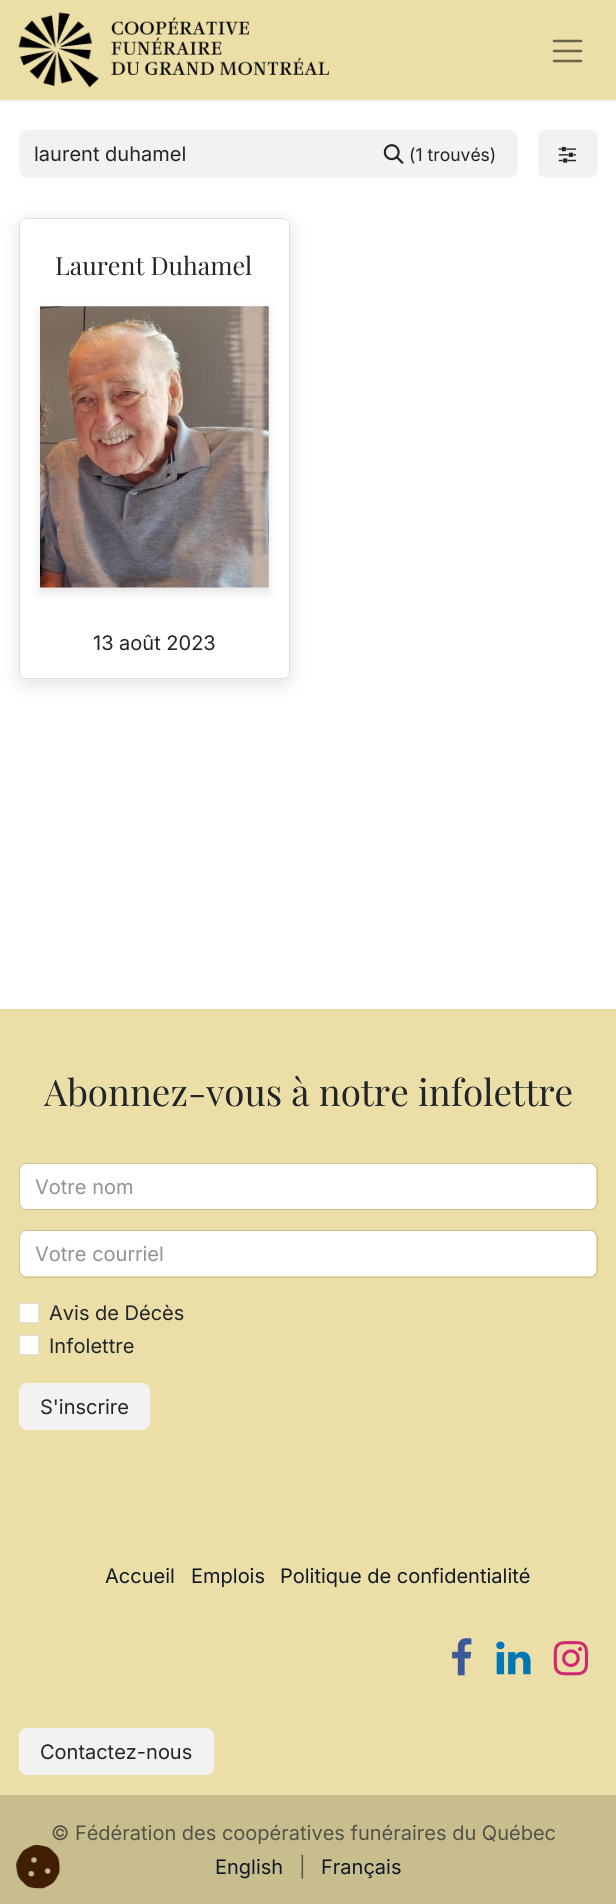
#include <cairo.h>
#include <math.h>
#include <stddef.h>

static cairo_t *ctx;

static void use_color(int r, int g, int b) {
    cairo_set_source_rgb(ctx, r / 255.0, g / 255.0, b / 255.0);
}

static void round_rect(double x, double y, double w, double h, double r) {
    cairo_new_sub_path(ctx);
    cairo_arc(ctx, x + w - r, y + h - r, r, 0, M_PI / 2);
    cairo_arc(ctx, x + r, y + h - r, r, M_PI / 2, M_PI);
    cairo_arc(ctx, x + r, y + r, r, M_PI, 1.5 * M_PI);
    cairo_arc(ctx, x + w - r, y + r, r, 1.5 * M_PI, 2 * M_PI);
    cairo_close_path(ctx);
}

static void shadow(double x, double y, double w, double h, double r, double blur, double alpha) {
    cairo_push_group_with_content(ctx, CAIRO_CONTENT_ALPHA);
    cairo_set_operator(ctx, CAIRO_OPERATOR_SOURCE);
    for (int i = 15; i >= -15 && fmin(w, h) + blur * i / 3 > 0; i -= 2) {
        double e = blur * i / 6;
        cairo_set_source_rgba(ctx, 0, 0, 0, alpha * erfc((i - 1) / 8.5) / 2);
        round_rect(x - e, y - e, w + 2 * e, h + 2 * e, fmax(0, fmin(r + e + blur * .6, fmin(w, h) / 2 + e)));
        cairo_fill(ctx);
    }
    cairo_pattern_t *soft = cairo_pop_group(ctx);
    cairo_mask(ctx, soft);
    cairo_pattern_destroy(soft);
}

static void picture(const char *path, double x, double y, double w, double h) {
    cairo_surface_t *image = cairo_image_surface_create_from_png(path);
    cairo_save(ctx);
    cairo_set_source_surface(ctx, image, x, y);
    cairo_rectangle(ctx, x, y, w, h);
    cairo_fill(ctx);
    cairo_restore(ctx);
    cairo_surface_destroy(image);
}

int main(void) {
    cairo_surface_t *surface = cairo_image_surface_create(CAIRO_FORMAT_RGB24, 616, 1904);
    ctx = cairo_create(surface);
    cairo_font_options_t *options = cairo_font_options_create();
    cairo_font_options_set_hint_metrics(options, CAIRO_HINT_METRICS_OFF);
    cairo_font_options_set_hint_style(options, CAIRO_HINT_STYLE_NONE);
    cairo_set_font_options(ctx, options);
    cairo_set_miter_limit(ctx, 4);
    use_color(255, 255, 255);
    cairo_paint(ctx);
    use_color(0, 0, 0);
    shadow(0, 1, 616, 100, 0, 2, 0.1);
    use_color(235, 222, 166);
    cairo_rectangle(ctx, 0, 0, 616, 100);
    cairo_fill(ctx);
    picture("img1.png", 18, 12, 311, 76);
    cairo_new_path(ctx);
    cairo_move_to(ctx, 554, 41);
    cairo_line_to(ctx, 581, 41);
    cairo_move_to(ctx, 554, 51);
    cairo_line_to(ctx, 581, 51);
    cairo_move_to(ctx, 554, 61);
    cairo_line_to(ctx, 581, 61);
    use_color(106, 100, 75);
    cairo_set_line_width(ctx, 2.5);
    cairo_set_line_cap(ctx, CAIRO_LINE_CAP_ROUND);
    cairo_stroke(ctx);
    use_color(243, 242, 242);
    cairo_new_path(ctx);
    cairo_move_to(ctx, 27, 130);
    cairo_line_to(ctx, 364, 130);
    cairo_line_to(ctx, 364, 178);
    cairo_line_to(ctx, 27, 178);
    cairo_curve_to(ctx, 22.5, 178, 19, 174.5, 19, 170);
    cairo_line_to(ctx, 19, 138);
    cairo_curve_to(ctx, 19, 133.5, 22.5, 130, 27, 130);
    cairo_close_path(ctx);
    cairo_fill(ctx);
    cairo_select_font_face(ctx, "Inter", CAIRO_FONT_SLANT_NORMAL, CAIRO_FONT_WEIGHT_NORMAL);
    cairo_set_font_size(ctx, 20);
    use_color(33, 37, 41);
    cairo_move_to(ctx, 34, 161);
    cairo_show_text(ctx, "laurent duhamel");
    use_color(243, 242, 242);
    cairo_new_path(ctx);
    cairo_move_to(ctx, 363.5, 130.5);
    cairo_line_to(ctx, 510, 130.5);
    cairo_curve_to(ctx, 514, 130.5, 517.5, 134, 517.5, 138);
    cairo_line_to(ctx, 517.5, 170);
    cairo_curve_to(ctx, 517.5, 174, 514, 177.5, 510, 177.5);
    cairo_line_to(ctx, 363.5, 177.5);
    cairo_close_path(ctx);
    cairo_fill_preserve(ctx);
    cairo_set_line_width(ctx, 1);
    cairo_set_line_cap(ctx, CAIRO_LINE_CAP_BUTT);
    cairo_stroke(ctx);
    picture("img2.png", 383, 144, 21, 20);
    cairo_set_font_size(ctx, 17.5);
    use_color(33, 37, 41);
    cairo_move_to(ctx, 409, 161);
    cairo_show_text(ctx, "(1 trouvés)");
    use_color(243, 242, 242);
    round_rect(538.5, 130.5, 59, 47, 7.5);
    cairo_fill_preserve(ctx);
    cairo_stroke(ctx);
    picture("img3.png", 558, 146, 18, 17);
    use_color(0, 0, 0);
    shadow(19, 223, 271, 461, 8, 10, 0.12);
    use_color(255, 255, 255);
    round_rect(19, 218, 271, 461, 8);
    cairo_fill(ctx);
    round_rect(19.5, 218.5, 270, 460, 7.5);
    cairo_set_source_rgba(ctx, 0.129, 0.145, 0.161, 0.15);
    cairo_stroke(ctx);
    cairo_set_source_rgba(ctx, 1, 1, 1, 0.9);
    round_rect(20, 219, 269, 459, 6);
    cairo_fill(ctx);
    cairo_select_font_face(ctx, "Playfair Display", CAIRO_FONT_SLANT_NORMAL, CAIRO_FONT_WEIGHT_NORMAL);
    cairo_set_font_size(ctx, 25);
    use_color(33, 37, 41);
    cairo_move_to(ctx, 55, 275);
    cairo_show_text(ctx, "Laurent Duhamel");
    use_color(0, 0, 0);
    shadow(40, 311, 229, 282, 0, 5, 0.1);
    picture("img4.png", 40, 306, 229, 282);
    cairo_select_font_face(ctx, "Inter", CAIRO_FONT_SLANT_NORMAL, CAIRO_FONT_WEIGHT_NORMAL);
    cairo_set_font_size(ctx, 20);
    use_color(33, 37, 41);
    cairo_move_to(ctx, 93, 650);
    cairo_show_text(ctx, "13 août 2023");
    use_color(235, 222, 166);
    cairo_rectangle(ctx, 0, 1009, 616, 786);
    cairo_fill(ctx);
    cairo_select_font_face(ctx, "Playfair Display", CAIRO_FONT_SLANT_NORMAL, CAIRO_FONT_WEIGHT_NORMAL);
    cairo_set_font_size(ctx, 36.75);
    use_color(33, 37, 41);
    cairo_move_to(ctx, 44, 1106);
    cairo_show_text(ctx, "Abonnez-vous à notre infolettre");
    use_color(255, 255, 255);
    round_rect(20, 1164, 576, 45, 6);
    cairo_fill(ctx);
    round_rect(19.5, 1163.5, 578, 46, 7.5);
    cairo_set_source_rgba(ctx, 0.129, 0.145, 0.161, 0.15);
    cairo_stroke(ctx);
    cairo_select_font_face(ctx, "Inter", CAIRO_FONT_SLANT_NORMAL, CAIRO_FONT_WEIGHT_NORMAL);
    cairo_set_font_size(ctx, 20);
    use_color(144, 146, 148);
    cairo_move_to(ctx, 35, 1194);
    cairo_show_text(ctx, "Votre nom");
    use_color(255, 255, 255);
    round_rect(20, 1231, 576, 45, 6);
    cairo_fill(ctx);
    round_rect(19.5, 1230.5, 578, 47, 7.5);
    cairo_set_source_rgba(ctx, 0.129, 0.145, 0.161, 0.15);
    cairo_stroke(ctx);
    use_color(144, 146, 148);
    cairo_move_to(ctx, 35, 1261);
    cairo_show_text(ctx, "Votre courriel");
    use_color(255, 255, 255);
    cairo_rectangle(ctx, 19.5, 1303.5, 19, 19);
    cairo_fill_preserve(ctx);
    use_color(222, 222, 223);
    cairo_stroke(ctx);
    use_color(33, 37, 41);
    cairo_move_to(ctx, 49, 1320);
    cairo_show_text(ctx, "Avis de Décès");
    use_color(255, 255, 255);
    cairo_rectangle(ctx, 19.5, 1335.5, 19, 19);
    cairo_fill_preserve(ctx);
    use_color(222, 222, 223);
    cairo_stroke(ctx);
    use_color(33, 37, 41);
    cairo_move_to(ctx, 49, 1353);
    cairo_show_text(ctx, "Infolettre");
    use_color(243, 242, 242);
    round_rect(19.5, 1383.5, 130, 46, 7.5);
    cairo_fill_preserve(ctx);
    cairo_stroke(ctx);
    use_color(33, 37, 41);
    cairo_move_to(ctx, 40, 1414);
    cairo_show_text(ctx, "S'inscrire");
    use_color(17, 24, 39);
    cairo_move_to(ctx, 105, 1583);
    cairo_show_text(ctx, "Accueil");
    cairo_move_to(ctx, 191, 1583);
    cairo_show_text(ctx, "Emplois");
    cairo_move_to(ctx, 280, 1583);
    cairo_show_text(ctx, "Politique de confidentialité");
    picture("img5.png", 452, 1638, 20, 38);
    picture("img6.png", 496, 1641, 35, 34);
    picture("img7.png", 553, 1641, 36, 35);
    use_color(243, 242, 242);
    round_rect(19.5, 1728.5, 194, 46, 7.5);
    cairo_fill_preserve(ctx);
    cairo_stroke(ctx);
    use_color(33, 37, 41);
    cairo_move_to(ctx, 40, 1759);
    cairo_show_text(ctx, "Contactez-nous");
    use_color(200, 189, 141);
    cairo_rectangle(ctx, 0, 1795, 616, 109);
    cairo_fill(ctx);
    use_color(83, 83, 71);
    cairo_move_to(ctx, 51, 1840);
    cairo_show_text(ctx, "© Fédération des coopératives funéraires du Québec");
    use_color(17, 24, 39);
    cairo_move_to(ctx, 215, 1874);
    cairo_show_text(ctx, "English");
    use_color(83, 83, 71);
    cairo_move_to(ctx, 299, 1874);
    cairo_show_text(ctx, "|");
    use_color(17, 24, 39);
    cairo_move_to(ctx, 321, 1874);
    cairo_show_text(ctx, "Français");
    picture("img8.png", 16, 1845, 45, 44);
    cairo_surface_write_to_png(surface, "result.png");
    cairo_font_options_destroy(options);
    cairo_destroy(ctx);
    cairo_surface_destroy(surface);
    return 0;
}
